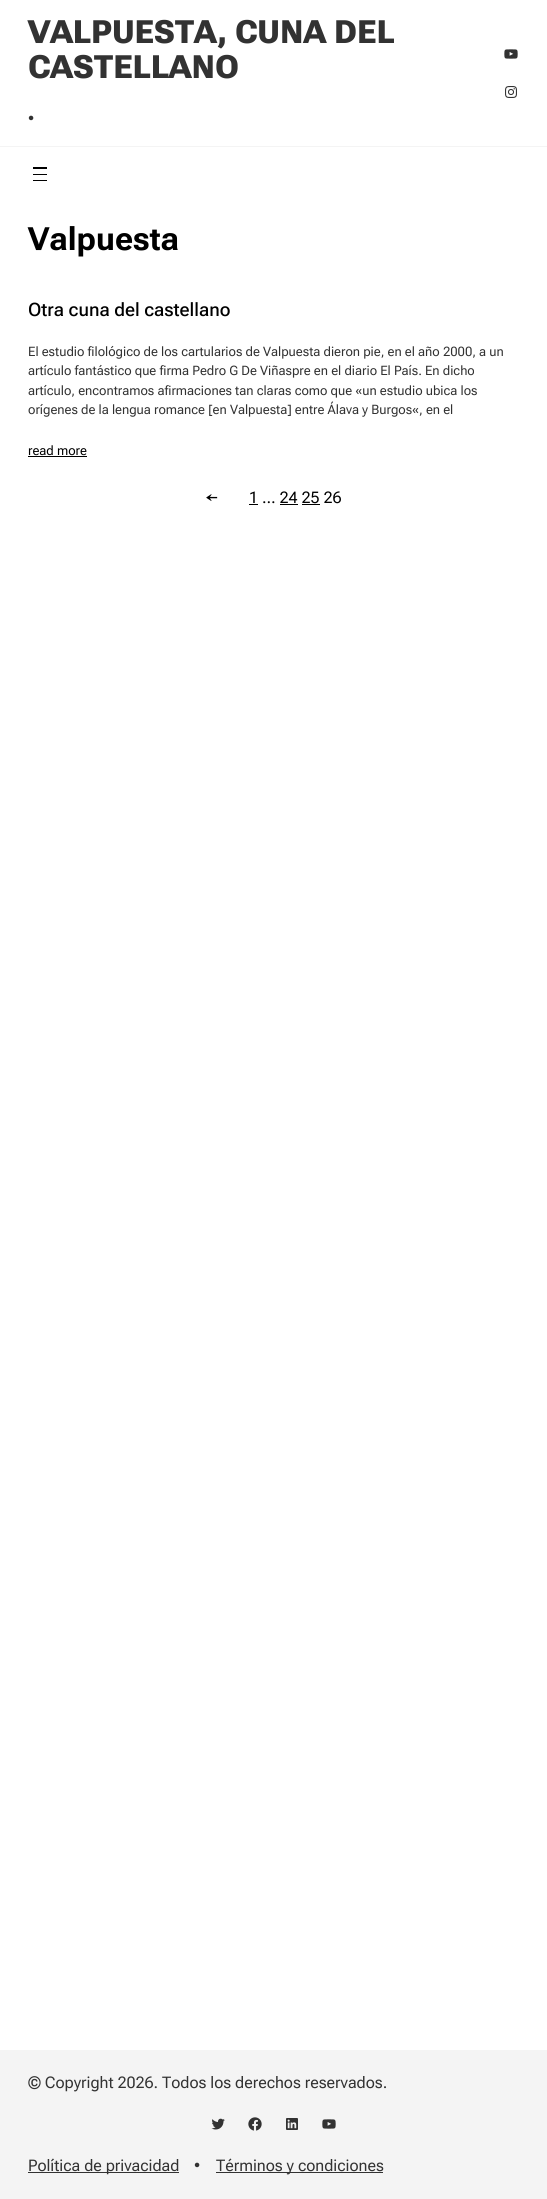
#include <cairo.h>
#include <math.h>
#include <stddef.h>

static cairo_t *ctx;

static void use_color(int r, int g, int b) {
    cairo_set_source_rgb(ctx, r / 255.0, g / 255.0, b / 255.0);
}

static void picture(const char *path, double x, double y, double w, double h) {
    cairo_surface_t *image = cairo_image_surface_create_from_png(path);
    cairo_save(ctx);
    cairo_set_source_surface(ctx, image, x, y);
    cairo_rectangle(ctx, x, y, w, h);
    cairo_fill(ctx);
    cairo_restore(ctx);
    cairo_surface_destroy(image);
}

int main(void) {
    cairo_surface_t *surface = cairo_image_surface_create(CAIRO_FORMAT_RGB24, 547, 2199);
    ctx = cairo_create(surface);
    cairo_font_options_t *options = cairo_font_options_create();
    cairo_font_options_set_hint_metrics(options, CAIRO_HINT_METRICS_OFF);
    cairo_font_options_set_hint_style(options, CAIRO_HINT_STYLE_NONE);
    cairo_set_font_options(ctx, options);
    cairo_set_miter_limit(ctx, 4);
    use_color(255, 255, 255);
    cairo_paint(ctx);
    use_color(244, 244, 244);
    cairo_rectangle(ctx, 0, 146, 547, 1);
    cairo_fill(ctx);
    cairo_select_font_face(ctx, "Roboto Flex Black", CAIRO_FONT_SLANT_NORMAL, CAIRO_FONT_WEIGHT_NORMAL);
    cairo_set_font_size(ctx, 32);
    use_color(50, 50, 50);
    cairo_move_to(ctx, 28, 43);
    cairo_show_text(ctx, "VALPUESTA, CUNA DEL");
    cairo_move_to(ctx, 28, 78);
    cairo_show_text(ctx, "CASTELLANO");
    cairo_select_font_face(ctx, "Roboto Flex", CAIRO_FONT_SLANT_NORMAL, CAIRO_FONT_WEIGHT_NORMAL);
    cairo_set_font_size(ctx, 16);
    cairo_move_to(ctx, 28, 124);
    cairo_show_text(ctx, "•");
    picture("img1.png", 504, 49, 14, 10);
    picture("img2.png", 505, 86, 12, 12);
    use_color(0, 0, 0);
    cairo_rectangle(ctx, 33, 167, 14, 2);
    cairo_fill(ctx);
    cairo_rectangle(ctx, 33, 174, 14, 1);
    cairo_fill(ctx);
    cairo_rectangle(ctx, 33, 180, 14, 1);
    cairo_fill(ctx);
    cairo_select_font_face(ctx, "Roboto Flex", CAIRO_FONT_SLANT_NORMAL, CAIRO_FONT_WEIGHT_BOLD);
    cairo_set_font_size(ctx, 32);
    cairo_move_to(ctx, 28, 250);
    cairo_show_text(ctx, "Valpuesta");
    cairo_select_font_face(ctx, "Roboto Flex Medium", CAIRO_FONT_SLANT_NORMAL, CAIRO_FONT_WEIGHT_NORMAL);
    cairo_set_font_size(ctx, 18.5);
    cairo_move_to(ctx, 28, 316);
    cairo_show_text(ctx, "Otra cuna del castellano");
    cairo_select_font_face(ctx, "Roboto Flex", CAIRO_FONT_SLANT_NORMAL, CAIRO_FONT_WEIGHT_NORMAL);
    cairo_set_font_size(ctx, 13);
    use_color(50, 50, 50);
    cairo_move_to(ctx, 28, 356);
    cairo_show_text(ctx, "El estudio filológico de los cartularios de Valpuesta dieron pie, en el año 2000, a un");
    cairo_move_to(ctx, 28, 375);
    cairo_show_text(ctx, "artículo fantástico que firma Pedro G De Viñaspre en el diario El País. En dicho");
    cairo_move_to(ctx, 28, 395);
    cairo_show_text(ctx, "artículo, encontramos afirmaciones tan claras como que «un estudio ubica los");
    cairo_move_to(ctx, 28, 414);
    cairo_show_text(ctx, "orígenes de la lengua romance [en Valpuesta] entre Álava y Burgos«, en el");
    use_color(0, 0, 0);
    cairo_move_to(ctx, 28, 455);
    cairo_show_text(ctx, "read more");
    cairo_rectangle(ctx, 28, 456, 59, 1);
    cairo_fill(ctx);
    cairo_set_font_size(ctx, 16);
    cairo_move_to(ctx, 205, 503);
    cairo_show_text(ctx, "←");
    cairo_move_to(ctx, 249, 503);
    cairo_show_text(ctx, "1 … 24 25 26");
    cairo_rectangle(ctx, 249, 504, 9, 1);
    cairo_fill(ctx);
    cairo_rectangle(ctx, 280, 504, 18, 1);
    cairo_fill(ctx);
    cairo_rectangle(ctx, 302, 504, 18, 1);
    cairo_fill(ctx);
    use_color(244, 244, 244);
    cairo_rectangle(ctx, 0, 2050, 547, 149);
    cairo_fill(ctx);
    use_color(50, 50, 50);
    cairo_move_to(ctx, 28, 2088);
    cairo_show_text(ctx, "© Copyright 2026. Todos los derechos reservados.");
    picture("img3.png", 211, 2118, 14, 12);
    picture("img4.png", 248, 2117, 14, 14);
    picture("img5.png", 286, 2118, 12, 12);
    picture("img6.png", 322, 2119, 14, 10);
    cairo_rectangle(ctx, 28, 2172, 151, 1);
    cairo_fill(ctx);
    cairo_move_to(ctx, 28, 2171);
    cairo_show_text(ctx, "Política de privacidad");
    cairo_move_to(ctx, 194, 2171);
    cairo_show_text(ctx, "•");
    cairo_rectangle(ctx, 216, 2172, 167, 1);
    cairo_fill(ctx);
    cairo_move_to(ctx, 216, 2171);
    cairo_show_text(ctx, "Términos y condiciones");
    cairo_surface_write_to_png(surface, "result.png");
    cairo_font_options_destroy(options);
    cairo_destroy(ctx);
    cairo_surface_destroy(surface);
    return 0;
}
